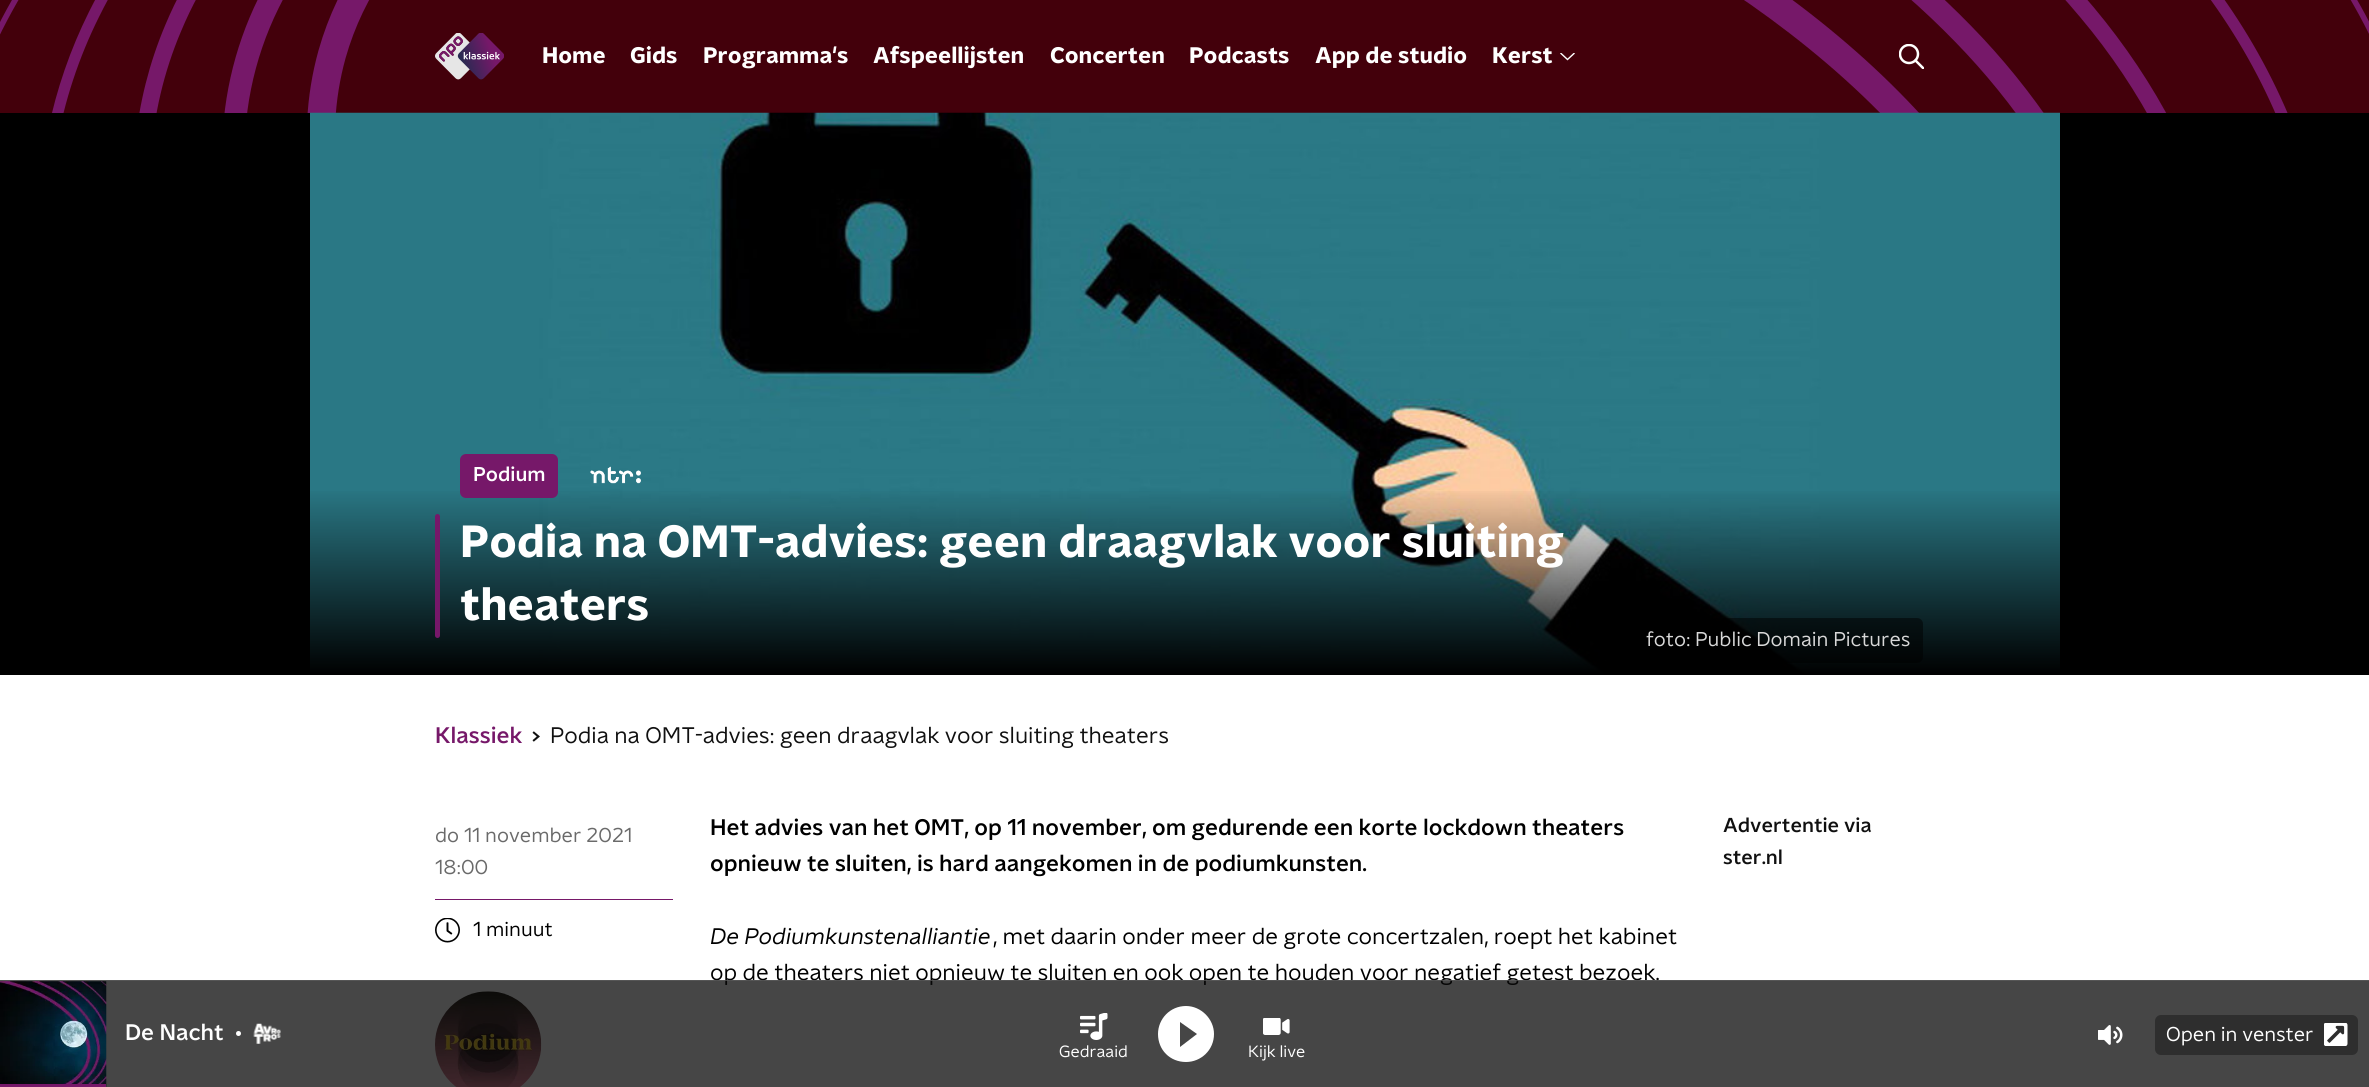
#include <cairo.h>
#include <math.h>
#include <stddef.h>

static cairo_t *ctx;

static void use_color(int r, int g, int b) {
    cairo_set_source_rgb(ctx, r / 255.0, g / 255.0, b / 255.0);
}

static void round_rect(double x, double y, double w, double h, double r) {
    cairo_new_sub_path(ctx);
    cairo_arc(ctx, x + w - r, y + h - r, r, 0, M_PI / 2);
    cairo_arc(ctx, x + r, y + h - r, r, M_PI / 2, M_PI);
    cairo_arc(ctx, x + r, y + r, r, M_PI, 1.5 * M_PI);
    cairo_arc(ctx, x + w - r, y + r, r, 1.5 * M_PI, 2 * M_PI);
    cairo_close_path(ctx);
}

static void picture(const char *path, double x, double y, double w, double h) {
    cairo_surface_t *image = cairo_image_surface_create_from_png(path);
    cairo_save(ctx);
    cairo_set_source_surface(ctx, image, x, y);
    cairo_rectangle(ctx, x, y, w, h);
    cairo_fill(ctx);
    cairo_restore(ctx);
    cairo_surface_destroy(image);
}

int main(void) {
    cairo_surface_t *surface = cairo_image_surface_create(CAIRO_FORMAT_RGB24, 2369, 1087);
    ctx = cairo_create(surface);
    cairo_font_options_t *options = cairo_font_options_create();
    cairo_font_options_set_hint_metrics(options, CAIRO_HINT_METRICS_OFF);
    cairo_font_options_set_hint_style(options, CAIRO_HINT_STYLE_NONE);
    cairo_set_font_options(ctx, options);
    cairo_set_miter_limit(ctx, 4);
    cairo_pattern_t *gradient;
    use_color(255, 255, 255);
    cairo_paint(ctx);
    use_color(67, 0, 11);
    cairo_rectangle(ctx, 0, 0, 2369, 113);
    cairo_fill(ctx);
    picture("img1.png", 0, 0, 2369, 113);
    picture("img2.png", 435, 33, 69, 47);
    cairo_select_font_face(ctx, "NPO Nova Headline", CAIRO_FONT_SLANT_NORMAL, CAIRO_FONT_WEIGHT_BOLD);
    cairo_set_font_size(ctx, 22.5);
    use_color(255, 255, 255);
    cairo_move_to(ctx, 542, 63);
    cairo_show_text(ctx, "Home");
    cairo_move_to(ctx, 630, 63);
    cairo_show_text(ctx, "Gids");
    cairo_move_to(ctx, 703, 63);
    cairo_show_text(ctx, "Programma's");
    cairo_move_to(ctx, 873, 63);
    cairo_show_text(ctx, "Afspeellijsten");
    cairo_move_to(ctx, 1050, 63);
    cairo_show_text(ctx, "Concerten");
    cairo_move_to(ctx, 1189, 63);
    cairo_show_text(ctx, "Podcasts");
    cairo_move_to(ctx, 1315, 63);
    cairo_show_text(ctx, "App de studio");
    cairo_move_to(ctx, 1492, 63);
    cairo_show_text(ctx, "Kerst");
    cairo_save(ctx);
    cairo_rectangle(ctx, 1560, 53, 15, 8);
    cairo_clip(ctx);
    cairo_new_path(ctx);
    cairo_move_to(ctx, 1560.5, 53);
    cairo_line_to(ctx, 1567.5, 59.5);
    cairo_line_to(ctx, 1574.5, 53);
    cairo_set_line_width(ctx, 1.4);
    cairo_stroke(ctx);
    cairo_restore(ctx);
    cairo_save(ctx);
    cairo_rectangle(ctx, 1899, 44, 25, 25);
    cairo_clip(ctx);
    cairo_arc(ctx, 1909, 54, 9, 0, 2 * M_PI);
    cairo_set_line_width(ctx, 2.5);
    cairo_stroke(ctx);
    cairo_new_path(ctx);
    cairo_move_to(ctx, 1915.5, 60.5);
    cairo_line_to(ctx, 1923, 68);
    cairo_set_line_cap(ctx, CAIRO_LINE_CAP_SQUARE);
    cairo_stroke(ctx);
    cairo_restore(ctx);
    use_color(0, 0, 0);
    cairo_rectangle(ctx, 0, 113, 2369, 561);
    cairo_fill(ctx);
    picture("img3.png", 310, 112, 1750, 562);
    gradient = cairo_pattern_create_linear(1185, 487, 1185, 675);
    cairo_pattern_add_color_stop_rgba(gradient, 0, 0, 0, 0, 0);
    cairo_pattern_add_color_stop_rgba(gradient, 1, 0, 0, 0, 1);
    cairo_set_source(ctx, gradient);
    cairo_pattern_destroy(gradient);
    cairo_rectangle(ctx, 0, 491, 2369, 184);
    cairo_fill(ctx);
    use_color(118, 24, 105);
    round_rect(460, 454, 98, 44, 6);
    cairo_fill(ctx);
    cairo_select_font_face(ctx, "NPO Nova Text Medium", CAIRO_FONT_SLANT_NORMAL, CAIRO_FONT_WEIGHT_NORMAL);
    cairo_set_font_size(ctx, 20);
    use_color(255, 255, 255);
    cairo_move_to(ctx, 473, 481);
    cairo_show_text(ctx, "Podium");
    picture("img4.png", 590, 466, 51, 18);
    use_color(118, 24, 105);
    round_rect(435, 514, 5, 124, 2.5);
    cairo_fill(ctx);
    cairo_select_font_face(ctx, "NPO Nova Headline", CAIRO_FONT_SLANT_NORMAL, CAIRO_FONT_WEIGHT_BOLD);
    cairo_set_font_size(ctx, 45);
    use_color(255, 255, 255);
    cairo_move_to(ctx, 460, 557);
    cairo_show_text(ctx, "Podia na OMT-advies: geen draagvlak voor sluiting");
    cairo_move_to(ctx, 460, 620);
    cairo_show_text(ctx, "theaters");
    cairo_set_source_rgba(ctx, 0, 0, 0, 0.5);
    round_rect(1633, 618, 290, 45, 6);
    cairo_fill(ctx);
    cairo_select_font_face(ctx, "NPO Nova Text", CAIRO_FONT_SLANT_NORMAL, CAIRO_FONT_WEIGHT_NORMAL);
    cairo_set_font_size(ctx, 20);
    use_color(217, 217, 217);
    cairo_move_to(ctx, 1646, 646);
    cairo_show_text(ctx, "foto:");
    cairo_move_to(ctx, 1695, 646);
    cairo_show_text(ctx, "Public Domain Pictures");
    cairo_select_font_face(ctx, "NPO Nova Text Medium", CAIRO_FONT_SLANT_NORMAL, CAIRO_FONT_WEIGHT_NORMAL);
    cairo_set_font_size(ctx, 22.5);
    use_color(118, 24, 105);
    cairo_move_to(ctx, 435, 743);
    cairo_show_text(ctx, "Klassiek");
    picture("img5.png", 532, 731, 8, 11);
    cairo_select_font_face(ctx, "NPO Nova Text", CAIRO_FONT_SLANT_NORMAL, CAIRO_FONT_WEIGHT_NORMAL);
    use_color(16, 16, 16);
    cairo_move_to(ctx, 550, 743);
    cairo_show_text(ctx, "Podia na OMT-advies: geen draagvlak voor sluiting theaters");
    cairo_set_font_size(ctx, 20);
    use_color(106, 106, 106);
    cairo_move_to(ctx, 435, 842);
    cairo_show_text(ctx, "do 11 november 2021");
    cairo_move_to(ctx, 435, 874);
    cairo_show_text(ctx, "18:00");
    use_color(118, 24, 105);
    cairo_rectangle(ctx, 435, 899, 238, 1);
    cairo_fill(ctx);
    picture("img6.png", 435, 918, 25, 25);
    use_color(0, 0, 0);
    cairo_move_to(ctx, 473, 936);
    cairo_show_text(ctx, "1 minuut");
    cairo_select_font_face(ctx, "NPO Nova Text Medium", CAIRO_FONT_SLANT_NORMAL, CAIRO_FONT_WEIGHT_NORMAL);
    cairo_set_font_size(ctx, 22.5);
    cairo_move_to(ctx, 710, 835);
    cairo_show_text(ctx, "Het advies van het OMT, op 11 november, om gedurende een korte lockdown theaters");
    cairo_move_to(ctx, 710, 871);
    cairo_show_text(ctx, "opnieuw te sluiten, is hard aangekomen in de podiumkunsten.");
    cairo_select_font_face(ctx, "NPO Nova Text", CAIRO_FONT_SLANT_ITALIC, CAIRO_FONT_WEIGHT_NORMAL);
    cairo_move_to(ctx, 710, 944);
    cairo_show_text(ctx, "De Podiumkunstenalliantie");
    cairo_select_font_face(ctx, "NPO Nova Text", CAIRO_FONT_SLANT_NORMAL, CAIRO_FONT_WEIGHT_NORMAL);
    cairo_move_to(ctx, 993, 944);
    cairo_show_text(ctx, ", met daarin onder meer de grote concertzalen, roept het kabinet");
    cairo_move_to(ctx, 710, 980);
    cairo_show_text(ctx, "op de theaters niet opnieuw te sluiten en ook open te houden voor negatief getest bezoek.");
    cairo_select_font_face(ctx, "NPO Nova Text Medium", CAIRO_FONT_SLANT_NORMAL, CAIRO_FONT_WEIGHT_NORMAL);
    cairo_set_font_size(ctx, 20);
    use_color(16, 16, 16);
    cairo_move_to(ctx, 1723, 832);
    cairo_show_text(ctx, "Advertentie via");
    cairo_move_to(ctx, 1723, 864);
    cairo_show_text(ctx, "ster.nl");
    picture("img7.png", 435, 991, 107, 96);
    cairo_set_source_rgba(ctx, 0.035, 0.035, 0.035, 0.75);
    cairo_rectangle(ctx, 0, 980, 2369, 107);
    cairo_fill(ctx);
    cairo_set_source_rgba(ctx, 0.373, 0.373, 0.373, 0.65);
    cairo_rectangle(ctx, 0, 980, 2369, 1);
    cairo_fill(ctx);
    picture("img8.png", 0, 981, 107, 106);
    use_color(118, 24, 105);
    cairo_rectangle(ctx, 0, 1084, 106, 3);
    cairo_fill(ctx);
    cairo_set_font_size(ctx, 22.5);
    use_color(255, 255, 255);
    cairo_move_to(ctx, 125, 1040);
    cairo_show_text(ctx, "De Nacht");
    cairo_new_path(ctx);
    cairo_arc(ctx, 238.5, 1033.5, 2.5, 0, 2 * M_PI);
    cairo_fill(ctx);
    picture("img9.png", 253, 1023, 28, 21);
    picture("img10.png", 2098, 1025, 25, 20);
    use_color(46, 46, 46);
    round_rect(2155, 1015, 203, 40, 6);
    cairo_fill(ctx);
    cairo_select_font_face(ctx, "NPO Nova Text", CAIRO_FONT_SLANT_NORMAL, CAIRO_FONT_WEIGHT_NORMAL);
    cairo_set_font_size(ctx, 20);
    use_color(255, 255, 255);
    cairo_move_to(ctx, 2166, 1041);
    cairo_show_text(ctx, "Open in venster");
    picture("img11.png", 2324, 1023, 24, 23);
    picture("img12.png", 1080, 1013, 28, 27);
    cairo_set_font_size(ctx, 16.25);
    cairo_move_to(ctx, 1059, 1057);
    cairo_show_text(ctx, "Gedraaid");
    cairo_new_path(ctx);
    cairo_move_to(ctx, 1186, 1006);
    cairo_curve_to(ctx, 1170, 1006, 1158, 1019, 1158, 1034);
    cairo_curve_to(ctx, 1158, 1050, 1170, 1062, 1186, 1062);
    cairo_curve_to(ctx, 1201, 1062, 1214, 1050, 1214, 1034);
    cairo_curve_to(ctx, 1214, 1019, 1201, 1006, 1186, 1006);
    cairo_close_path(ctx);
    cairo_move_to(ctx, 1180, 1047);
    cairo_line_to(ctx, 1180, 1022);
    cairo_line_to(ctx, 1197, 1034);
    cairo_close_path(ctx);
    cairo_fill(ctx);
    picture("img13.png", 1263, 1018, 27, 17);
    cairo_move_to(ctx, 1248, 1057);
    cairo_show_text(ctx, "Kijk live");
    cairo_surface_write_to_png(surface, "result.png");
    cairo_font_options_destroy(options);
    cairo_destroy(ctx);
    cairo_surface_destroy(surface);
    return 0;
}
